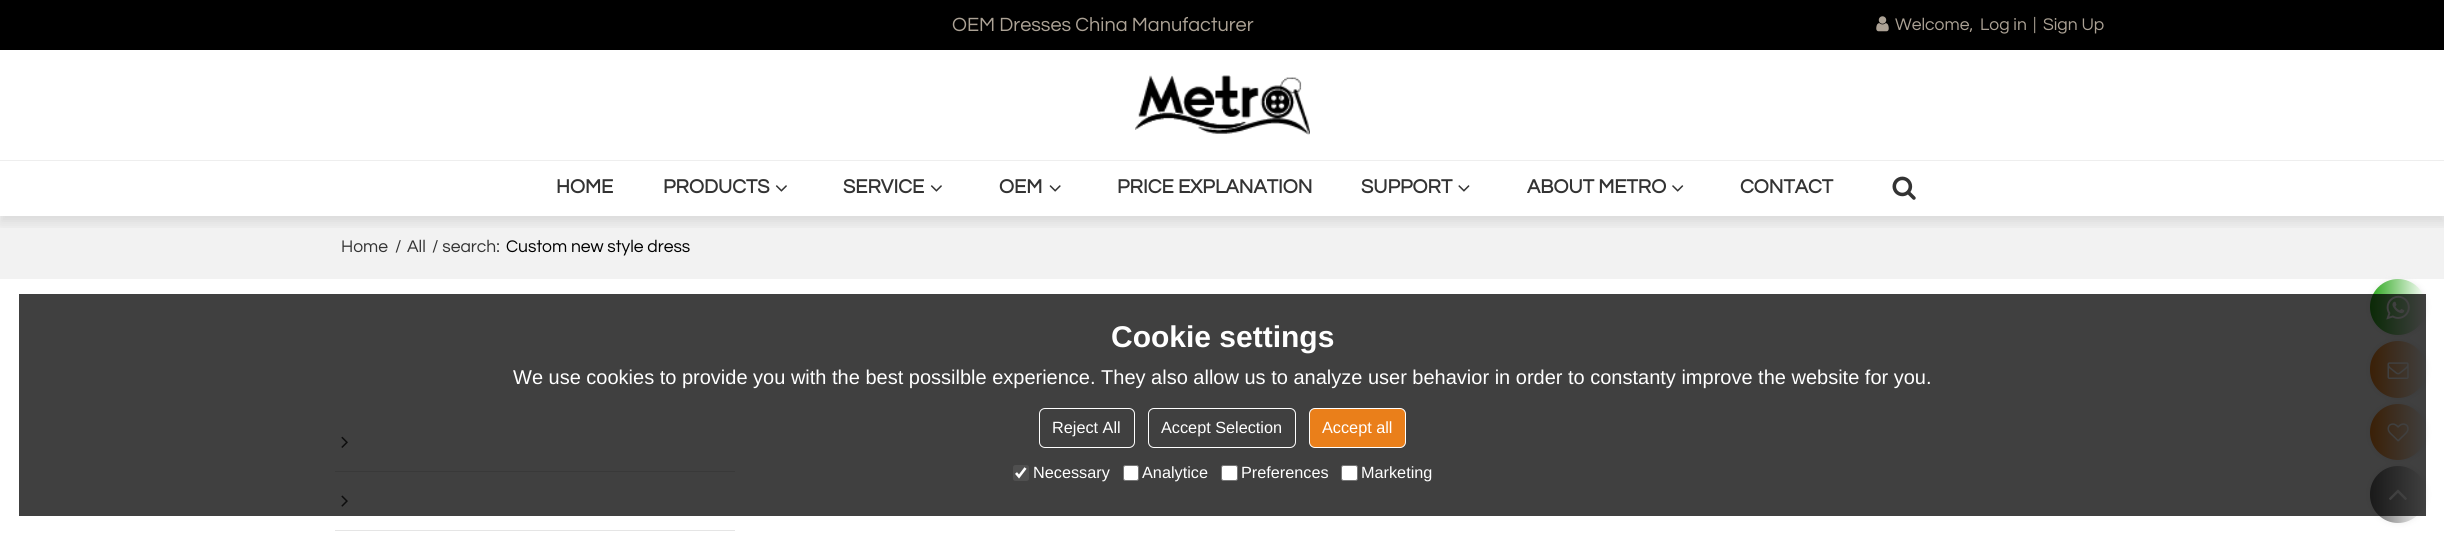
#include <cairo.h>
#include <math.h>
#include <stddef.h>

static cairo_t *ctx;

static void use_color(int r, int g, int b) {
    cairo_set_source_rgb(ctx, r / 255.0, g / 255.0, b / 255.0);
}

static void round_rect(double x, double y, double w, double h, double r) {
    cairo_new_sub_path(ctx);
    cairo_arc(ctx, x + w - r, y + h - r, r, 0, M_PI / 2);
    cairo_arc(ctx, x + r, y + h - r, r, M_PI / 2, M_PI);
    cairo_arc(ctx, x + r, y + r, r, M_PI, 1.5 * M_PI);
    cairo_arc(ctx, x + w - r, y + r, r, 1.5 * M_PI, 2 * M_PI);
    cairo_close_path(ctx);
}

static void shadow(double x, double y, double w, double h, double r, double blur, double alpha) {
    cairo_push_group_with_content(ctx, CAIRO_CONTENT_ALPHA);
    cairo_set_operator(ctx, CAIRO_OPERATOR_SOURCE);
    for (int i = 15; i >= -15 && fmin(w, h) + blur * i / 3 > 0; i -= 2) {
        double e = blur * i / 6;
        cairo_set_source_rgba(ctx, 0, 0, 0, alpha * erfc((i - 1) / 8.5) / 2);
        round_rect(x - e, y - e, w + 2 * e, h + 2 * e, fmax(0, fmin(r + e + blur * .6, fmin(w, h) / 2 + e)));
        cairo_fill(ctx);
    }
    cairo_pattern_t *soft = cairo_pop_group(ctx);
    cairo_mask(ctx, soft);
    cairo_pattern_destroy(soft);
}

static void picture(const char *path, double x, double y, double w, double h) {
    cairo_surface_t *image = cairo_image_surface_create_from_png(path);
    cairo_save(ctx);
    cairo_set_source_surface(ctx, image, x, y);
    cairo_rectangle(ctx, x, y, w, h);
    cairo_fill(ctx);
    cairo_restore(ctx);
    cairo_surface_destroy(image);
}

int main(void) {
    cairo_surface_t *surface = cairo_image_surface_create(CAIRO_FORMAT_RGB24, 2444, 535);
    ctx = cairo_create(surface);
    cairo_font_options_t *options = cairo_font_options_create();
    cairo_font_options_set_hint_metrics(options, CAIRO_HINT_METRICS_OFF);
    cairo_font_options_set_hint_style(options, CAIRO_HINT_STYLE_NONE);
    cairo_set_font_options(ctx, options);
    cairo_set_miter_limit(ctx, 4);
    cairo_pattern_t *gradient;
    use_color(255, 255, 255);
    cairo_paint(ctx);
    use_color(0, 0, 0);
    cairo_rectangle(ctx, 0, 0, 2444, 50);
    cairo_fill(ctx);
    cairo_select_font_face(ctx, "Questrial", CAIRO_FONT_SLANT_NORMAL, CAIRO_FONT_WEIGHT_NORMAL);
    cairo_set_font_size(ctx, 19.9);
    use_color(172, 162, 149);
    cairo_move_to(ctx, 952, 31);
    cairo_show_text(ctx, "OEM Dresses China Manufacturer");
    picture("img1.png", 1876, 16, 13, 16);
    cairo_set_font_size(ctx, 17.5);
    cairo_move_to(ctx, 1895, 30);
    cairo_show_text(ctx, "Welcome,");
    cairo_move_to(ctx, 1980, 30);
    cairo_show_text(ctx, "Log in");
    cairo_move_to(ctx, 2033, 30);
    cairo_show_text(ctx, "|");
    cairo_move_to(ctx, 2043, 30);
    cairo_show_text(ctx, "Sign Up");
    use_color(242, 242, 242);
    cairo_rectangle(ctx, 0, 216, 2444, 63);
    cairo_fill(ctx);
    cairo_save(ctx);
    cairo_rectangle(ctx, 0, 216, 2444, 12);
    cairo_clip(ctx);
    use_color(0, 0, 0);
    shadow(0, 56, 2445, 167, 0, 6, 0.1);
    cairo_restore(ctx);
    use_color(238, 238, 238);
    cairo_rectangle(ctx, 0, 160, 2444, 1);
    cairo_fill(ctx);
    picture("img2.png", 1135, 75, 175, 60);
    cairo_select_font_face(ctx, "Questrial", CAIRO_FONT_SLANT_NORMAL, CAIRO_FONT_WEIGHT_BOLD);
    cairo_set_font_size(ctx, 20);
    use_color(51, 51, 51);
    cairo_move_to(ctx, 556, 193);
    cairo_show_text(ctx, "HOME");
    cairo_move_to(ctx, 663, 193);
    cairo_show_text(ctx, "PRODUCTS");
    picture("img3.png", 775, 185, 12, 7);
    cairo_move_to(ctx, 843, 193);
    cairo_show_text(ctx, "SERVICE");
    picture("img3.png", 930, 185, 12, 7);
    cairo_move_to(ctx, 999, 193);
    cairo_show_text(ctx, "OEM");
    picture("img4.png", 1049, 185, 12, 7);
    cairo_move_to(ctx, 1117, 193);
    cairo_show_text(ctx, "PRICE EXPLANATION");
    cairo_move_to(ctx, 1361, 193);
    cairo_show_text(ctx, "SUPPORT");
    picture("img5.png", 1458, 185, 12, 7);
    cairo_move_to(ctx, 1527, 193);
    cairo_show_text(ctx, "ABOUT METRO");
    picture("img6.png", 1672, 185, 12, 7);
    cairo_move_to(ctx, 1740, 193);
    cairo_show_text(ctx, "CONTACT");
    picture("img7.png", 1892, 176, 24, 24);
    cairo_select_font_face(ctx, "Questrial", CAIRO_FONT_SLANT_NORMAL, CAIRO_FONT_WEIGHT_NORMAL);
    cairo_set_font_size(ctx, 17.5);
    cairo_move_to(ctx, 341, 252);
    cairo_show_text(ctx, "Home");
    cairo_move_to(ctx, 395, 252);
    cairo_show_text(ctx, "/");
    cairo_move_to(ctx, 407, 252);
    cairo_show_text(ctx, "All");
    cairo_move_to(ctx, 432, 252);
    cairo_show_text(ctx, "/ search:");
    use_color(0, 0, 0);
    cairo_move_to(ctx, 506, 252);
    cairo_show_text(ctx, "Custom new style dress");
    use_color(229, 229, 229);
    cairo_rectangle(ctx, 335, 471, 400, 1);
    cairo_fill(ctx);
    picture("img8.png", 341, 436, 7, 12);
    cairo_rectangle(ctx, 335, 530, 400, 1);
    cairo_fill(ctx);
    picture("img9.png", 341, 495, 7, 12);
    use_color(238, 238, 238);
    shadow(2370, 279, 56, 56, 28, 3, 1);
    gradient = cairo_pattern_create_linear(2370, 307, 2426, 307);
    cairo_pattern_add_color_stop_rgba(gradient, 0, 0.161, 0.651, 0.102, 1);
    cairo_pattern_add_color_stop_rgba(gradient, 1, 1, 1, 1, 1);
    cairo_set_source(ctx, gradient);
    cairo_pattern_destroy(gradient);
    cairo_arc(ctx, 2398, 307, 28, 0, 2 * M_PI);
    cairo_fill(ctx);
    picture("img10.png", 2386, 295, 24, 25);
    use_color(238, 238, 238);
    shadow(2370, 341, 56, 57, 28, 3, 1);
    gradient = cairo_pattern_create_linear(2370, 369, 2426, 369);
    cairo_pattern_add_color_stop_rgba(gradient, 0, 0.918, 0.498, 0.102, 1);
    cairo_pattern_add_color_stop_rgba(gradient, 1, 1, 1, 1, 1);
    cairo_set_source(ctx, gradient);
    cairo_pattern_destroy(gradient);
    round_rect(2370, 341, 56, 57, 28);
    cairo_fill(ctx);
    picture("img11.png", 2387, 362, 22, 17);
    use_color(238, 238, 238);
    shadow(2370, 404, 56, 56, 28, 3, 1);
    gradient = cairo_pattern_create_linear(2370, 432, 2426, 432);
    cairo_pattern_add_color_stop_rgba(gradient, 0, 0.918, 0.498, 0.102, 1);
    cairo_pattern_add_color_stop_rgba(gradient, 1, 1, 1, 1, 1);
    cairo_set_source(ctx, gradient);
    cairo_pattern_destroy(gradient);
    cairo_arc(ctx, 2398, 432, 28, 0, 2 * M_PI);
    cairo_fill(ctx);
    picture("img12.png", 2387, 423, 22, 19);
    use_color(238, 238, 238);
    shadow(2370, 466, 56, 57, 28, 3, 1);
    gradient = cairo_pattern_create_linear(2370, 494, 2426, 494);
    cairo_pattern_add_color_stop_rgba(gradient, 0, 0.4, 0.4, 0.4, 1);
    cairo_pattern_add_color_stop_rgba(gradient, 1, 1, 1, 1, 1);
    cairo_set_source(ctx, gradient);
    cairo_pattern_destroy(gradient);
    round_rect(2370, 466, 56, 57, 28);
    cairo_fill(ctx);
    picture("img13.png", 2389, 489, 18, 11);
    cairo_set_source_rgba(ctx, 0, 0, 0, 0.75);
    cairo_rectangle(ctx, 19, 294, 2407, 222);
    cairo_fill(ctx);
    cairo_select_font_face(ctx, "Liberation Sans", CAIRO_FONT_SLANT_NORMAL, CAIRO_FONT_WEIGHT_BOLD);
    cairo_set_font_size(ctx, 30);
    use_color(255, 255, 255);
    cairo_move_to(ctx, 1111, 347);
    cairo_show_text(ctx, "Cookie settings");
    cairo_select_font_face(ctx, "Liberation Sans", CAIRO_FONT_SLANT_NORMAL, CAIRO_FONT_WEIGHT_NORMAL);
    cairo_set_font_size(ctx, 20);
    cairo_move_to(ctx, 513, 384);
    cairo_show_text(ctx, "We use cookies to provide you with the best possilble experience. They also allow us to analyze user behavior in order to constanty improve the website for you.");
    round_rect(1039.5, 408.5, 95, 39, 5.5);
    cairo_set_line_width(ctx, 1);
    cairo_stroke(ctx);
    cairo_set_font_size(ctx, 16.25);
    cairo_move_to(ctx, 1052, 433);
    cairo_show_text(ctx, "Reject All");
    round_rect(1148.5, 408.5, 147, 39, 5.5);
    cairo_stroke(ctx);
    cairo_move_to(ctx, 1161, 433);
    cairo_show_text(ctx, "Accept Selection");
    use_color(234, 127, 26);
    round_rect(1309.5, 408.5, 96, 39, 5.5);
    cairo_fill_preserve(ctx);
    use_color(255, 255, 255);
    cairo_stroke(ctx);
    cairo_move_to(ctx, 1322, 433);
    cairo_show_text(ctx, "Accept all");
    cairo_set_source_rgba(ctx, 0.463, 0.463, 0.463, 0.3);
    round_rect(1013, 465, 16, 16, 2.5);
    cairo_fill(ctx);
    cairo_new_path(ctx);
    cairo_move_to(ctx, 1016, 473);
    cairo_line_to(ctx, 1019, 476.5);
    cairo_line_to(ctx, 1025.5, 468);
    use_color(255, 255, 255);
    cairo_set_line_width(ctx, 2.6);
    cairo_stroke(ctx);
    cairo_move_to(ctx, 1033, 478);
    cairo_show_text(ctx, "Necessary");
    round_rect(1123.5, 465.5, 15, 15, 2);
    cairo_fill_preserve(ctx);
    use_color(118, 118, 118);
    cairo_set_line_width(ctx, 1);
    cairo_stroke(ctx);
    use_color(255, 255, 255);
    cairo_move_to(ctx, 1142, 478);
    cairo_show_text(ctx, "Analytice");
    round_rect(1221.5, 465.5, 16, 15, 2);
    cairo_fill_preserve(ctx);
    use_color(118, 118, 118);
    cairo_stroke(ctx);
    use_color(255, 255, 255);
    cairo_move_to(ctx, 1241, 478);
    cairo_show_text(ctx, "Preferences");
    round_rect(1341.5, 465.5, 16, 15, 2);
    cairo_fill_preserve(ctx);
    use_color(118, 118, 118);
    cairo_stroke(ctx);
    use_color(255, 255, 255);
    cairo_move_to(ctx, 1361, 478);
    cairo_show_text(ctx, "Marketing");
    cairo_surface_write_to_png(surface, "result.png");
    cairo_font_options_destroy(options);
    cairo_destroy(ctx);
    cairo_surface_destroy(surface);
    return 0;
}
